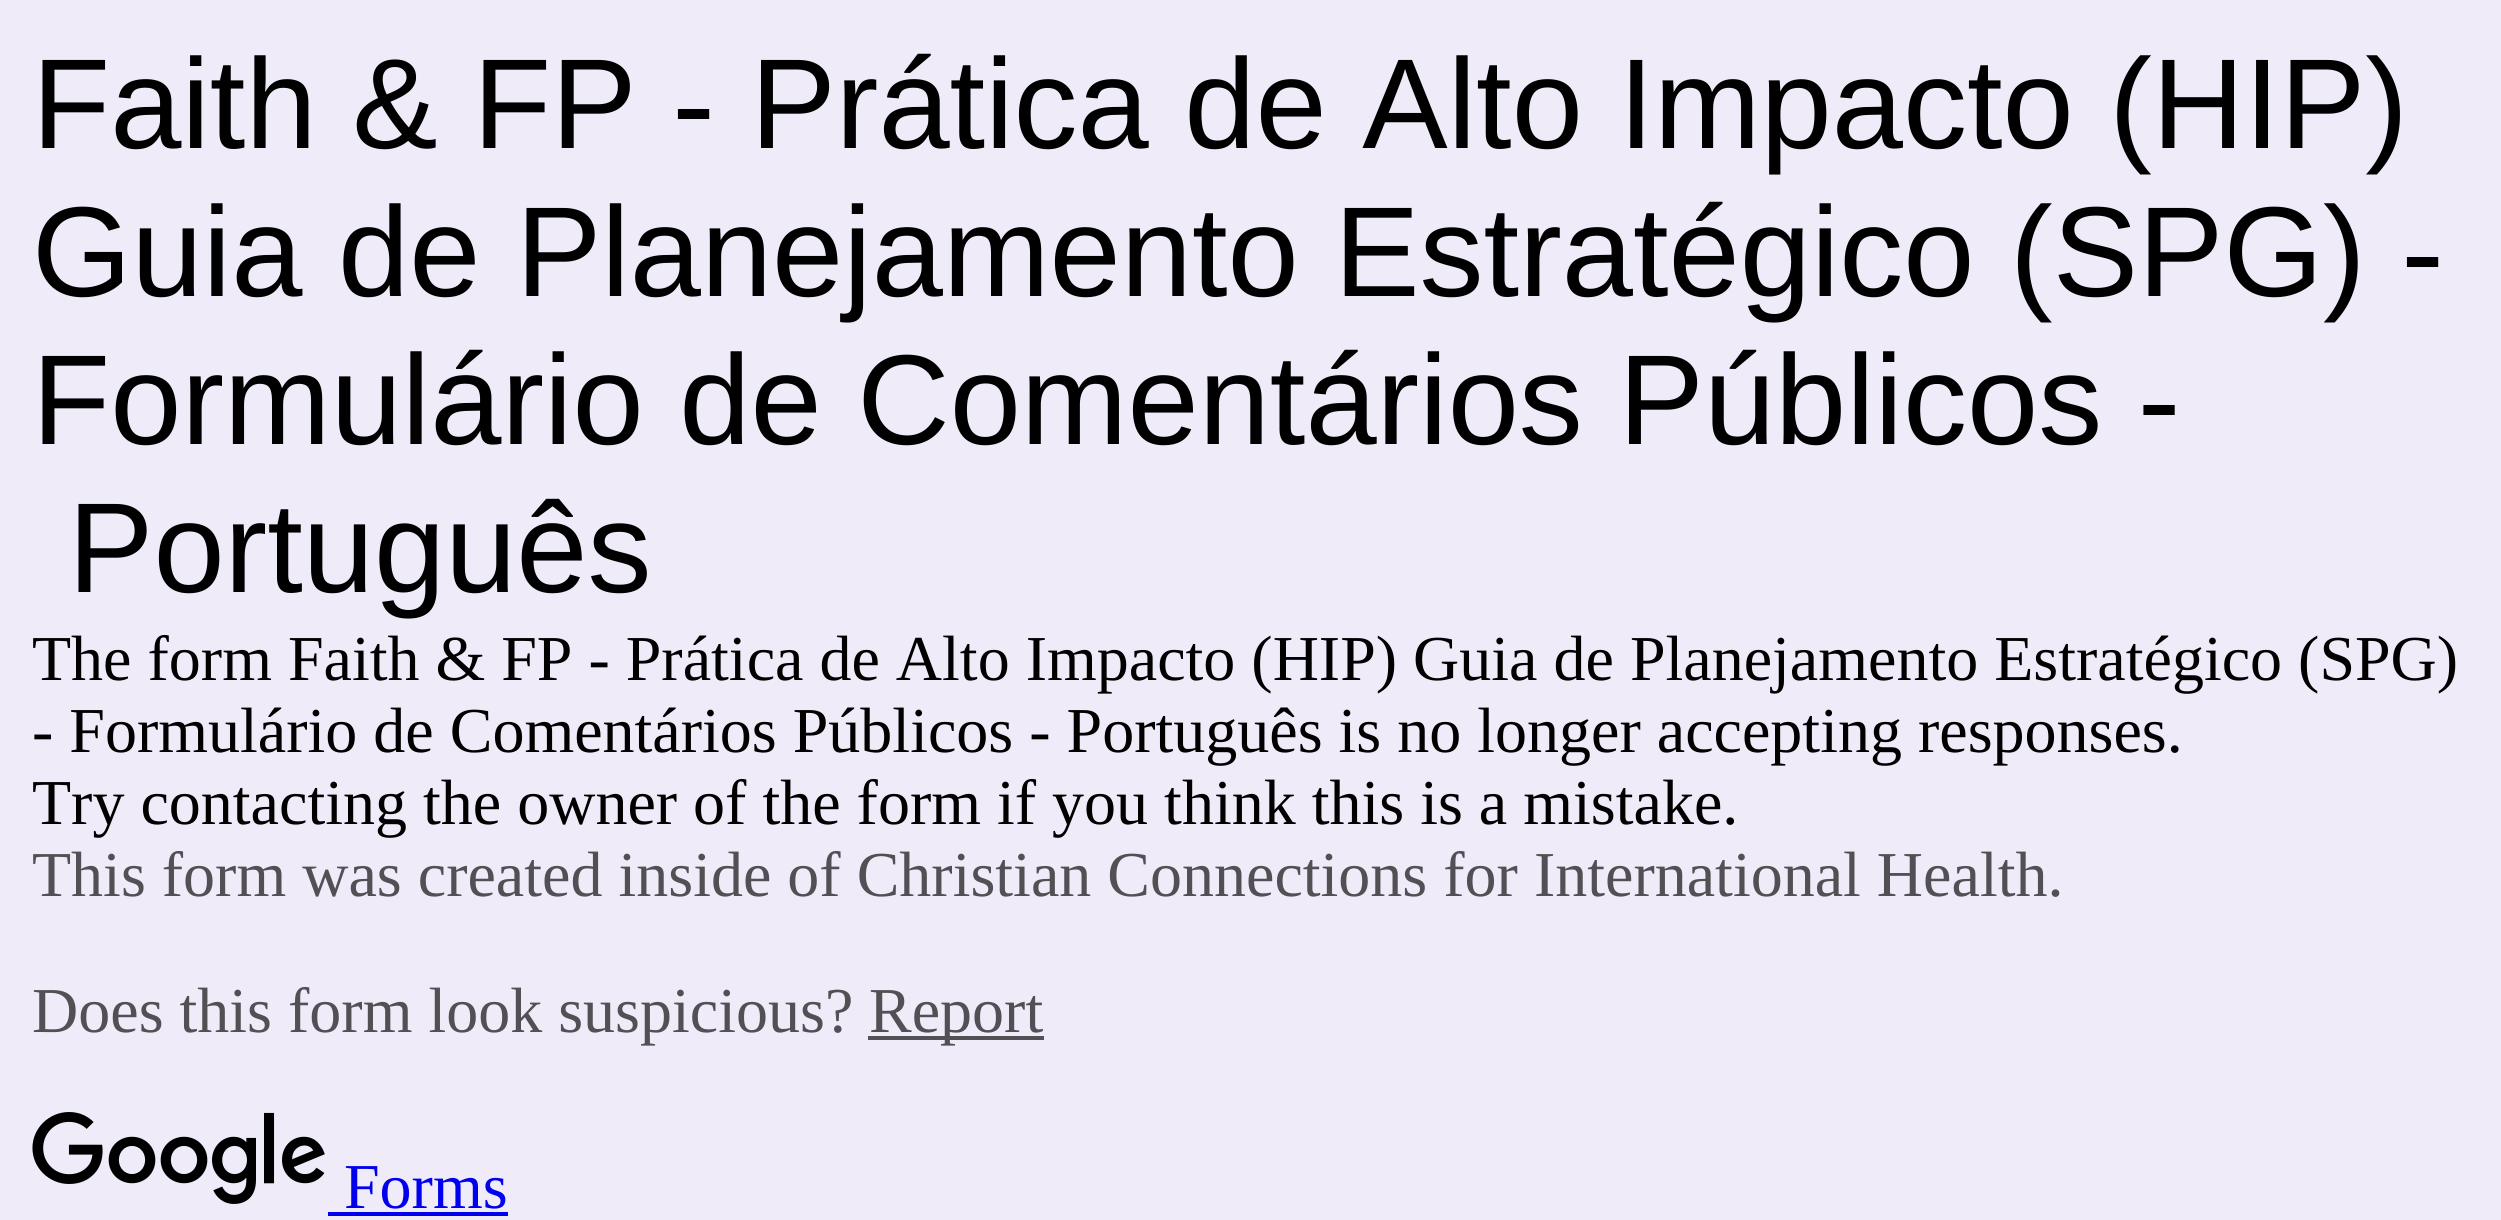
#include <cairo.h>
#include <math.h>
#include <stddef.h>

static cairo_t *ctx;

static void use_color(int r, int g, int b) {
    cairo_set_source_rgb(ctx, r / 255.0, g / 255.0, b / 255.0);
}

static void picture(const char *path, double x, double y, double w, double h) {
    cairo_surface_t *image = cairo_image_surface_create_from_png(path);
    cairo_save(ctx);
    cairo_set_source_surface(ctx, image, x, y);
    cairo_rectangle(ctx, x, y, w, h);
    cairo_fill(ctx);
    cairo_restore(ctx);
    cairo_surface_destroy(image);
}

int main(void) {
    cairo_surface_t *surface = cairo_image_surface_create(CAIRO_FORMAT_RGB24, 2501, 1220);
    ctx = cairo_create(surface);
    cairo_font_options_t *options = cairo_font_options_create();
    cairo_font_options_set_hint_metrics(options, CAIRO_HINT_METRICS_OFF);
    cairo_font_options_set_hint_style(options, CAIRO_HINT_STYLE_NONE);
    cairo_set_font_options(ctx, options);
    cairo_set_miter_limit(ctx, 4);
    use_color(240, 235, 248);
    cairo_paint(ctx);
    cairo_select_font_face(ctx, "Liberation Sans", CAIRO_FONT_SLANT_NORMAL, CAIRO_FONT_WEIGHT_NORMAL);
    cairo_set_font_size(ctx, 128);
    use_color(0, 0, 0);
    cairo_move_to(ctx, 32, 148);
    cairo_show_text(ctx, "Faith & FP - Prática de Alto Impacto (HIP)");
    cairo_move_to(ctx, 32, 296);
    cairo_show_text(ctx, "Guia de Planejamento Estratégico (SPG) -");
    cairo_move_to(ctx, 32, 444);
    cairo_show_text(ctx, "Formulário de Comentários Públicos -");
    cairo_move_to(ctx, 68, 592);
    cairo_show_text(ctx, "Português");
    cairo_select_font_face(ctx, "Liberation Serif", CAIRO_FONT_SLANT_NORMAL, CAIRO_FONT_WEIGHT_NORMAL);
    cairo_set_font_size(ctx, 64);
    cairo_move_to(ctx, 32, 680);
    cairo_show_text(ctx, "The form Faith & FP - Prática de Alto Impacto (HIP) Guia de Planejamento Estratégico (SPG)");
    cairo_move_to(ctx, 32, 752);
    cairo_show_text(ctx, "- Formulário de Comentários Públicos - Português is no longer accepting responses.");
    cairo_move_to(ctx, 32, 824);
    cairo_show_text(ctx, "Try contacting the owner of the form if you think this is a mistake.");
    use_color(82, 80, 84);
    cairo_move_to(ctx, 32, 896);
    cairo_show_text(ctx, "This form was created inside of Christian Connections for International Health.");
    cairo_move_to(ctx, 32, 1032);
    cairo_show_text(ctx, "Does this form look suspicious?");
    cairo_rectangle(ctx, 868, 1036, 176, 4);
    cairo_fill(ctx);
    cairo_move_to(ctx, 869, 1032);
    cairo_show_text(ctx, "Report");
    picture("img1.png", 32, 1112, 293, 92);
    use_color(0, 0, 238);
    cairo_move_to(ctx, 344, 1208);
    cairo_show_text(ctx, "Forms");
    cairo_rectangle(ctx, 328, 1212, 180, 4);
    cairo_fill(ctx);
    cairo_surface_write_to_png(surface, "result.png");
    cairo_font_options_destroy(options);
    cairo_destroy(ctx);
    cairo_surface_destroy(surface);
    return 0;
}
